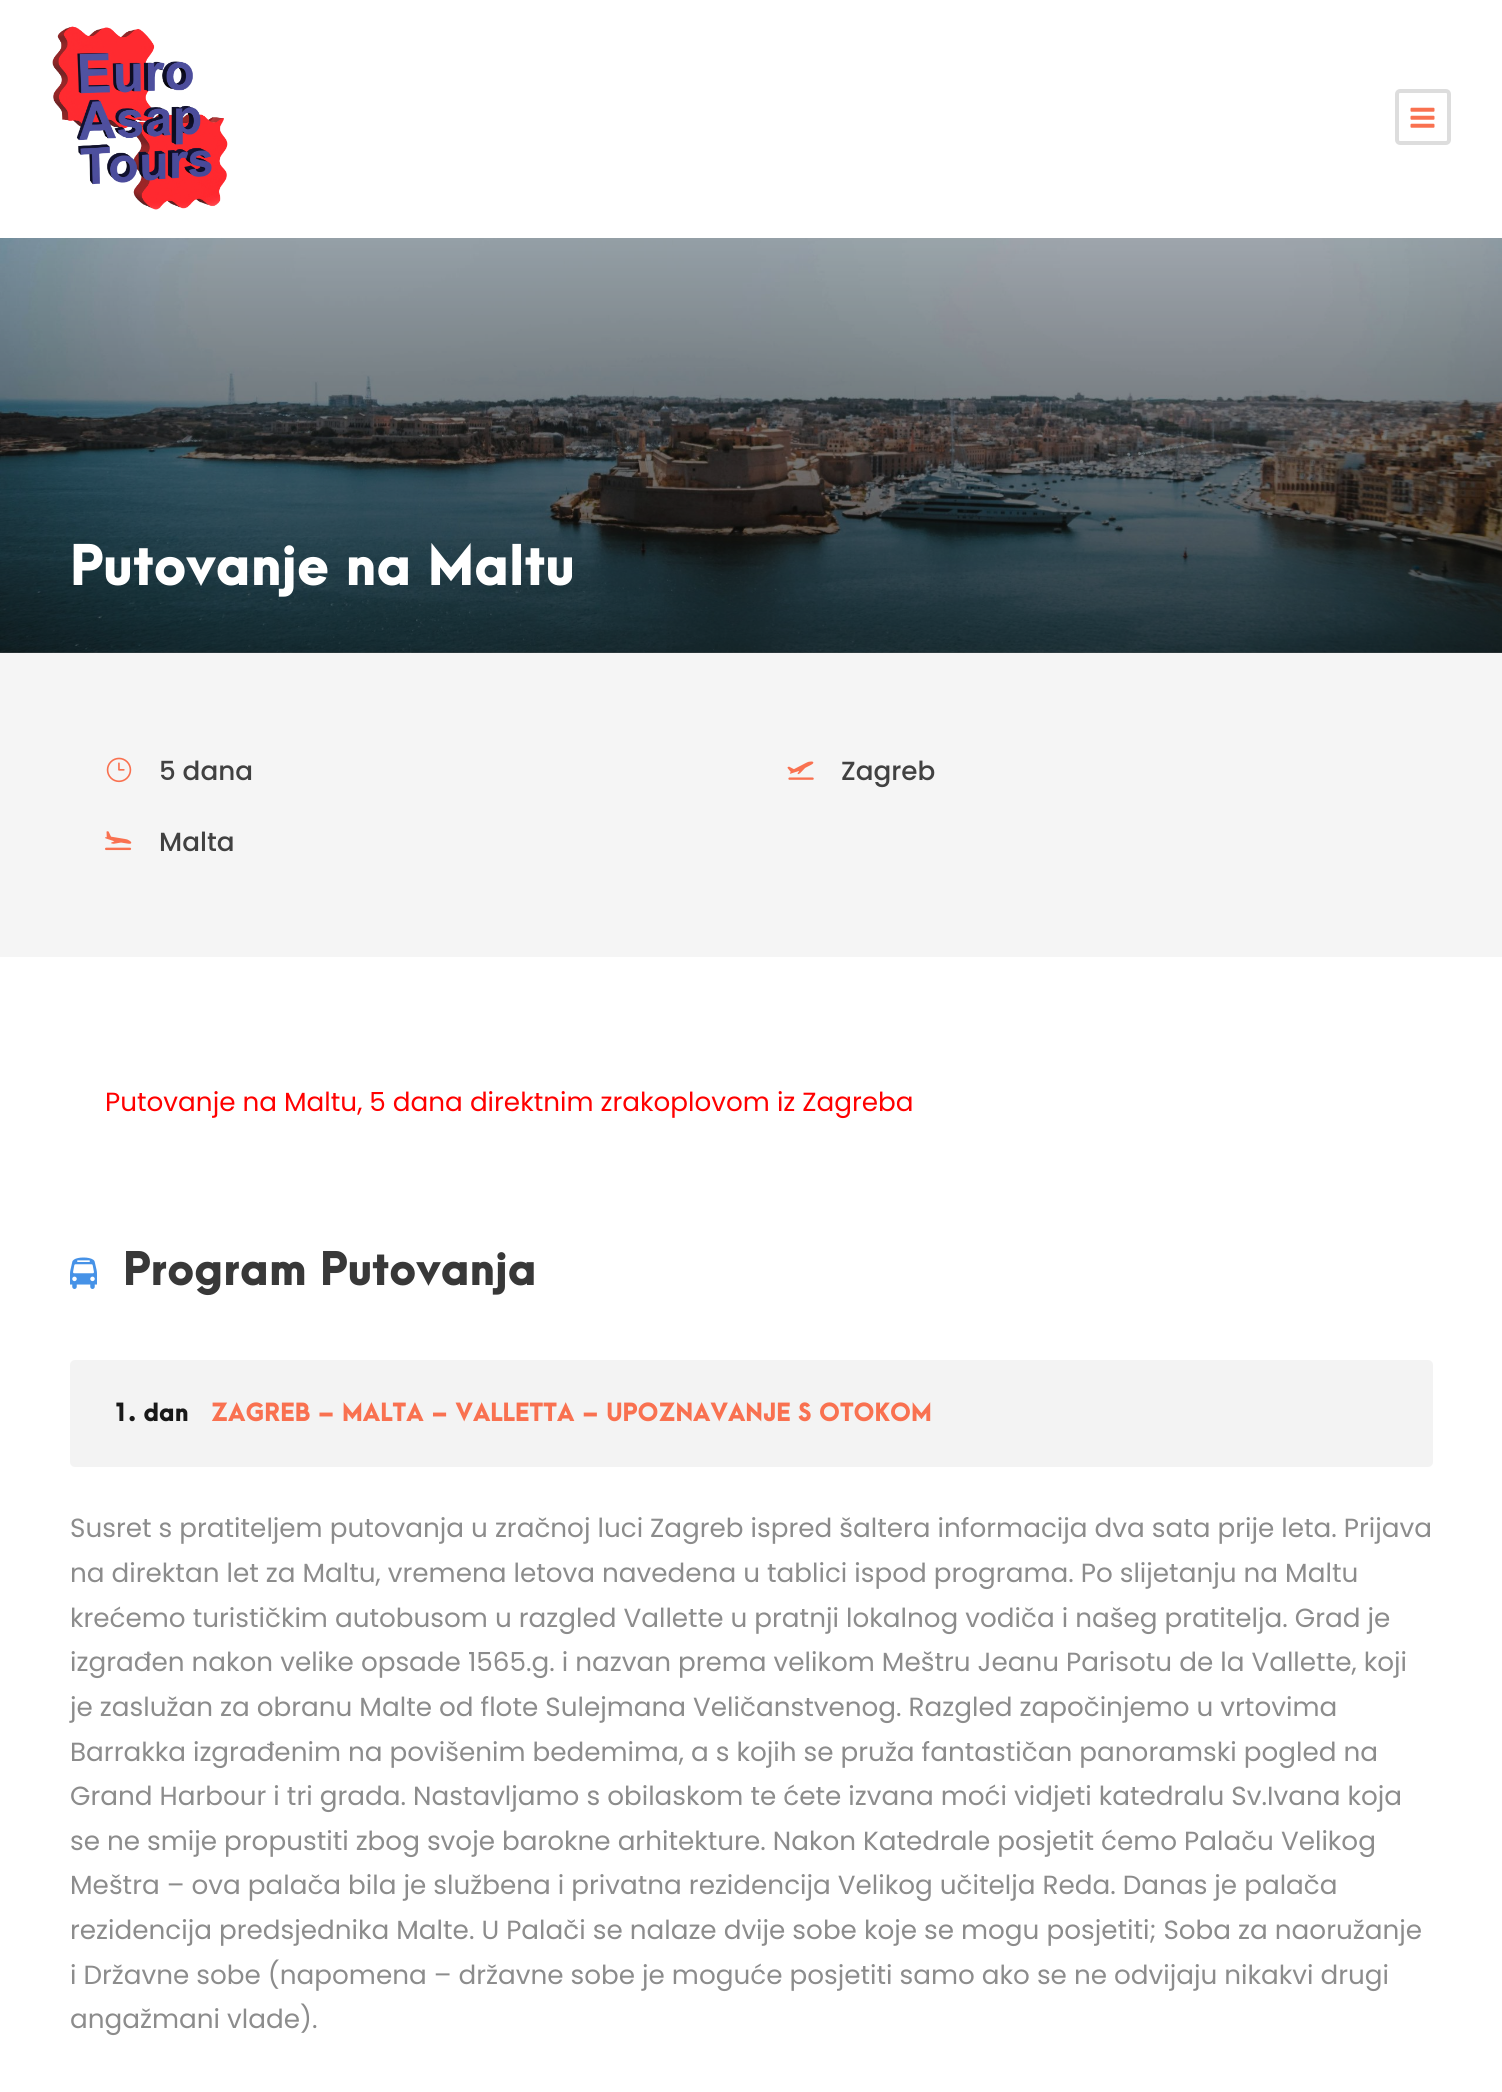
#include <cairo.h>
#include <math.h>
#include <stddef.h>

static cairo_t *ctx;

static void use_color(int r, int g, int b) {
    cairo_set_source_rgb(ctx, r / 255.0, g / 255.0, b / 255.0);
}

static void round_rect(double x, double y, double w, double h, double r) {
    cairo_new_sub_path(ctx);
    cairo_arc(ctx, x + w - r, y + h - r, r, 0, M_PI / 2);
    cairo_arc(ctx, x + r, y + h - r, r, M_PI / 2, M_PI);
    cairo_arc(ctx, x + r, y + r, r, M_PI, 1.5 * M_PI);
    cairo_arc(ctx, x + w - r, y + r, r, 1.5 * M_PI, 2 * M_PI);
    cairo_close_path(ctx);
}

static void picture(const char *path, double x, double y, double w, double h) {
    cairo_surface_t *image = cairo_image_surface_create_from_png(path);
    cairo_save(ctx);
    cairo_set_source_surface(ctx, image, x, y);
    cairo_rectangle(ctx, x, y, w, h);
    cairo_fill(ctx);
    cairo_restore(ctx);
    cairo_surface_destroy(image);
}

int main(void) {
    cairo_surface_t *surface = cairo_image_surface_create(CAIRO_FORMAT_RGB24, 1502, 2092);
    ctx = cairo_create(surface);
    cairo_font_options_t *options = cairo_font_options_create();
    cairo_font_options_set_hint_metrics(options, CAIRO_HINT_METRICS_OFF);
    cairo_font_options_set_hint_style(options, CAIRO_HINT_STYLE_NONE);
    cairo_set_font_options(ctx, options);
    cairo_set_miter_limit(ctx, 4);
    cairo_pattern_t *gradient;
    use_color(255, 255, 255);
    cairo_paint(ctx);
    picture("img1.png", 52, 26, 176, 184);
    round_rect(1397, 91, 52, 52, 3);
    use_color(221, 221, 221);
    cairo_set_line_width(ctx, 4);
    cairo_stroke(ctx);
    picture("img2.png", 1410, 107, 25, 21);
    picture("img3.png", 0, 238, 1502, 415);
    gradient = cairo_pattern_create_linear(752, 143, 752, 653);
    cairo_pattern_add_color_stop_rgba(gradient, 0, 0, 0, 0, 0);
    cairo_pattern_add_color_stop_rgba(gradient, 1, 0, 0, 0, 0.6);
    cairo_set_source(ctx, gradient);
    cairo_pattern_destroy(gradient);
    cairo_rectangle(ctx, 0, 238, 1502, 415);
    cairo_fill(ctx);
    cairo_select_font_face(ctx, "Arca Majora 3 Black", CAIRO_FONT_SLANT_NORMAL, CAIRO_FONT_WEIGHT_NORMAL);
    cairo_set_font_size(ctx, 50.75);
    use_color(255, 255, 255);
    cairo_move_to(ctx, 70, 585);
    cairo_show_text(ctx, "Putovanje na Maltu");
    use_color(245, 245, 245);
    cairo_rectangle(ctx, 0, 653, 1502, 304);
    cairo_fill(ctx);
    picture("img4.png", 106, 757, 26, 26);
    cairo_select_font_face(ctx, "Poppins Medium", CAIRO_FONT_SLANT_NORMAL, CAIRO_FONT_WEIGHT_NORMAL);
    cairo_set_font_size(ctx, 26.25);
    use_color(65, 65, 65);
    cairo_move_to(ctx, 159, 780);
    cairo_show_text(ctx, "5 dana");
    picture("img5.png", 787, 761, 27, 19);
    cairo_move_to(ctx, 841, 780);
    cairo_show_text(ctx, "Zagreb");
    picture("img6.png", 105, 831, 27, 20);
    cairo_move_to(ctx, 159, 851);
    cairo_show_text(ctx, "Malta");
    cairo_select_font_face(ctx, "Poppins", CAIRO_FONT_SLANT_NORMAL, CAIRO_FONT_WEIGHT_NORMAL);
    use_color(255, 0, 0);
    cairo_move_to(ctx, 105, 1111);
    cairo_show_text(ctx, "Putovanje na Maltu, 5 dana direktnim zrakoplovom iz Zagreba");
    picture("img7.png", 70, 1257, 27, 32);
    cairo_select_font_face(ctx, "Arca Majora 3 Black", CAIRO_FONT_SLANT_NORMAL, CAIRO_FONT_WEIGHT_NORMAL);
    cairo_set_font_size(ctx, 42);
    use_color(56, 56, 56);
    cairo_move_to(ctx, 123, 1285);
    cairo_show_text(ctx, "Program Putovanja");
    use_color(243, 243, 243);
    round_rect(70, 1360, 1363, 107, 5);
    cairo_fill(ctx);
    cairo_set_font_size(ctx, 22.75);
    use_color(25, 25, 25);
    cairo_move_to(ctx, 114, 1421);
    cairo_show_text(ctx, "1. dan");
    use_color(249, 113, 80);
    cairo_move_to(ctx, 211, 1421);
    cairo_show_text(ctx, "ZAGREB – MALTA – VALLETTA – UPOZNAVANJE S OTOKOM");
    cairo_select_font_face(ctx, "Poppins", CAIRO_FONT_SLANT_NORMAL, CAIRO_FONT_WEIGHT_NORMAL);
    cairo_set_font_size(ctx, 26.25);
    use_color(140, 140, 140);
    cairo_move_to(ctx, 70, 1537);
    cairo_show_text(ctx, "Susret s pratiteljem putovanja u zračnoj luci Zagreb ispred šaltera informacija dva sata prije leta. Prijava");
    cairo_move_to(ctx, 70, 1582);
    cairo_show_text(ctx, "na direktan let za Maltu, vremena letova navedena u tablici ispod programa. Po slijetanju na Maltu");
    cairo_move_to(ctx, 70, 1627);
    cairo_show_text(ctx, "krećemo turističkim autobusom u razgled Vallette u pratnji lokalnog vodiča i našeg pratitelja. Grad je");
    cairo_move_to(ctx, 70, 1671);
    cairo_show_text(ctx, "izgrađen nakon velike opsade 1565.g. i nazvan prema velikom Meštru Jeanu Parisotu de la Vallette, koji");
    cairo_move_to(ctx, 70, 1716);
    cairo_show_text(ctx, "je zaslužan za obranu Malte od flote Sulejmana Veličanstvenog. Razgled započinjemo u vrtovima");
    cairo_move_to(ctx, 70, 1761);
    cairo_show_text(ctx, "Barrakka izgrađenim na povišenim bedemima, a s kojih se pruža fantastičan panoramski pogled na");
    cairo_move_to(ctx, 70, 1805);
    cairo_show_text(ctx, "Grand Harbour i tri grada. Nastavljamo s obilaskom te ćete izvana moći vidjeti katedralu Sv.Ivana koja");
    cairo_move_to(ctx, 70, 1850);
    cairo_show_text(ctx, "se ne smije propustiti zbog svoje barokne arhitekture. Nakon Katedrale posjetit ćemo Palaču Velikog");
    cairo_move_to(ctx, 70, 1894);
    cairo_show_text(ctx, "Meštra – ova palača bila je službena i privatna rezidencija Velikog učitelja Reda. Danas je palača");
    cairo_move_to(ctx, 70, 1939);
    cairo_show_text(ctx, "rezidencija predsjednika Malte. U Palači se nalaze dvije sobe koje se mogu posjetiti; Soba za naoružanje");
    cairo_move_to(ctx, 70, 1984);
    cairo_show_text(ctx, "i Državne sobe (napomena – državne sobe je moguće posjetiti samo ako se ne odvijaju nikakvi drugi");
    cairo_move_to(ctx, 70, 2028);
    cairo_show_text(ctx, "angažmani vlade).");
    cairo_surface_write_to_png(surface, "result.png");
    cairo_font_options_destroy(options);
    cairo_destroy(ctx);
    cairo_surface_destroy(surface);
    return 0;
}
